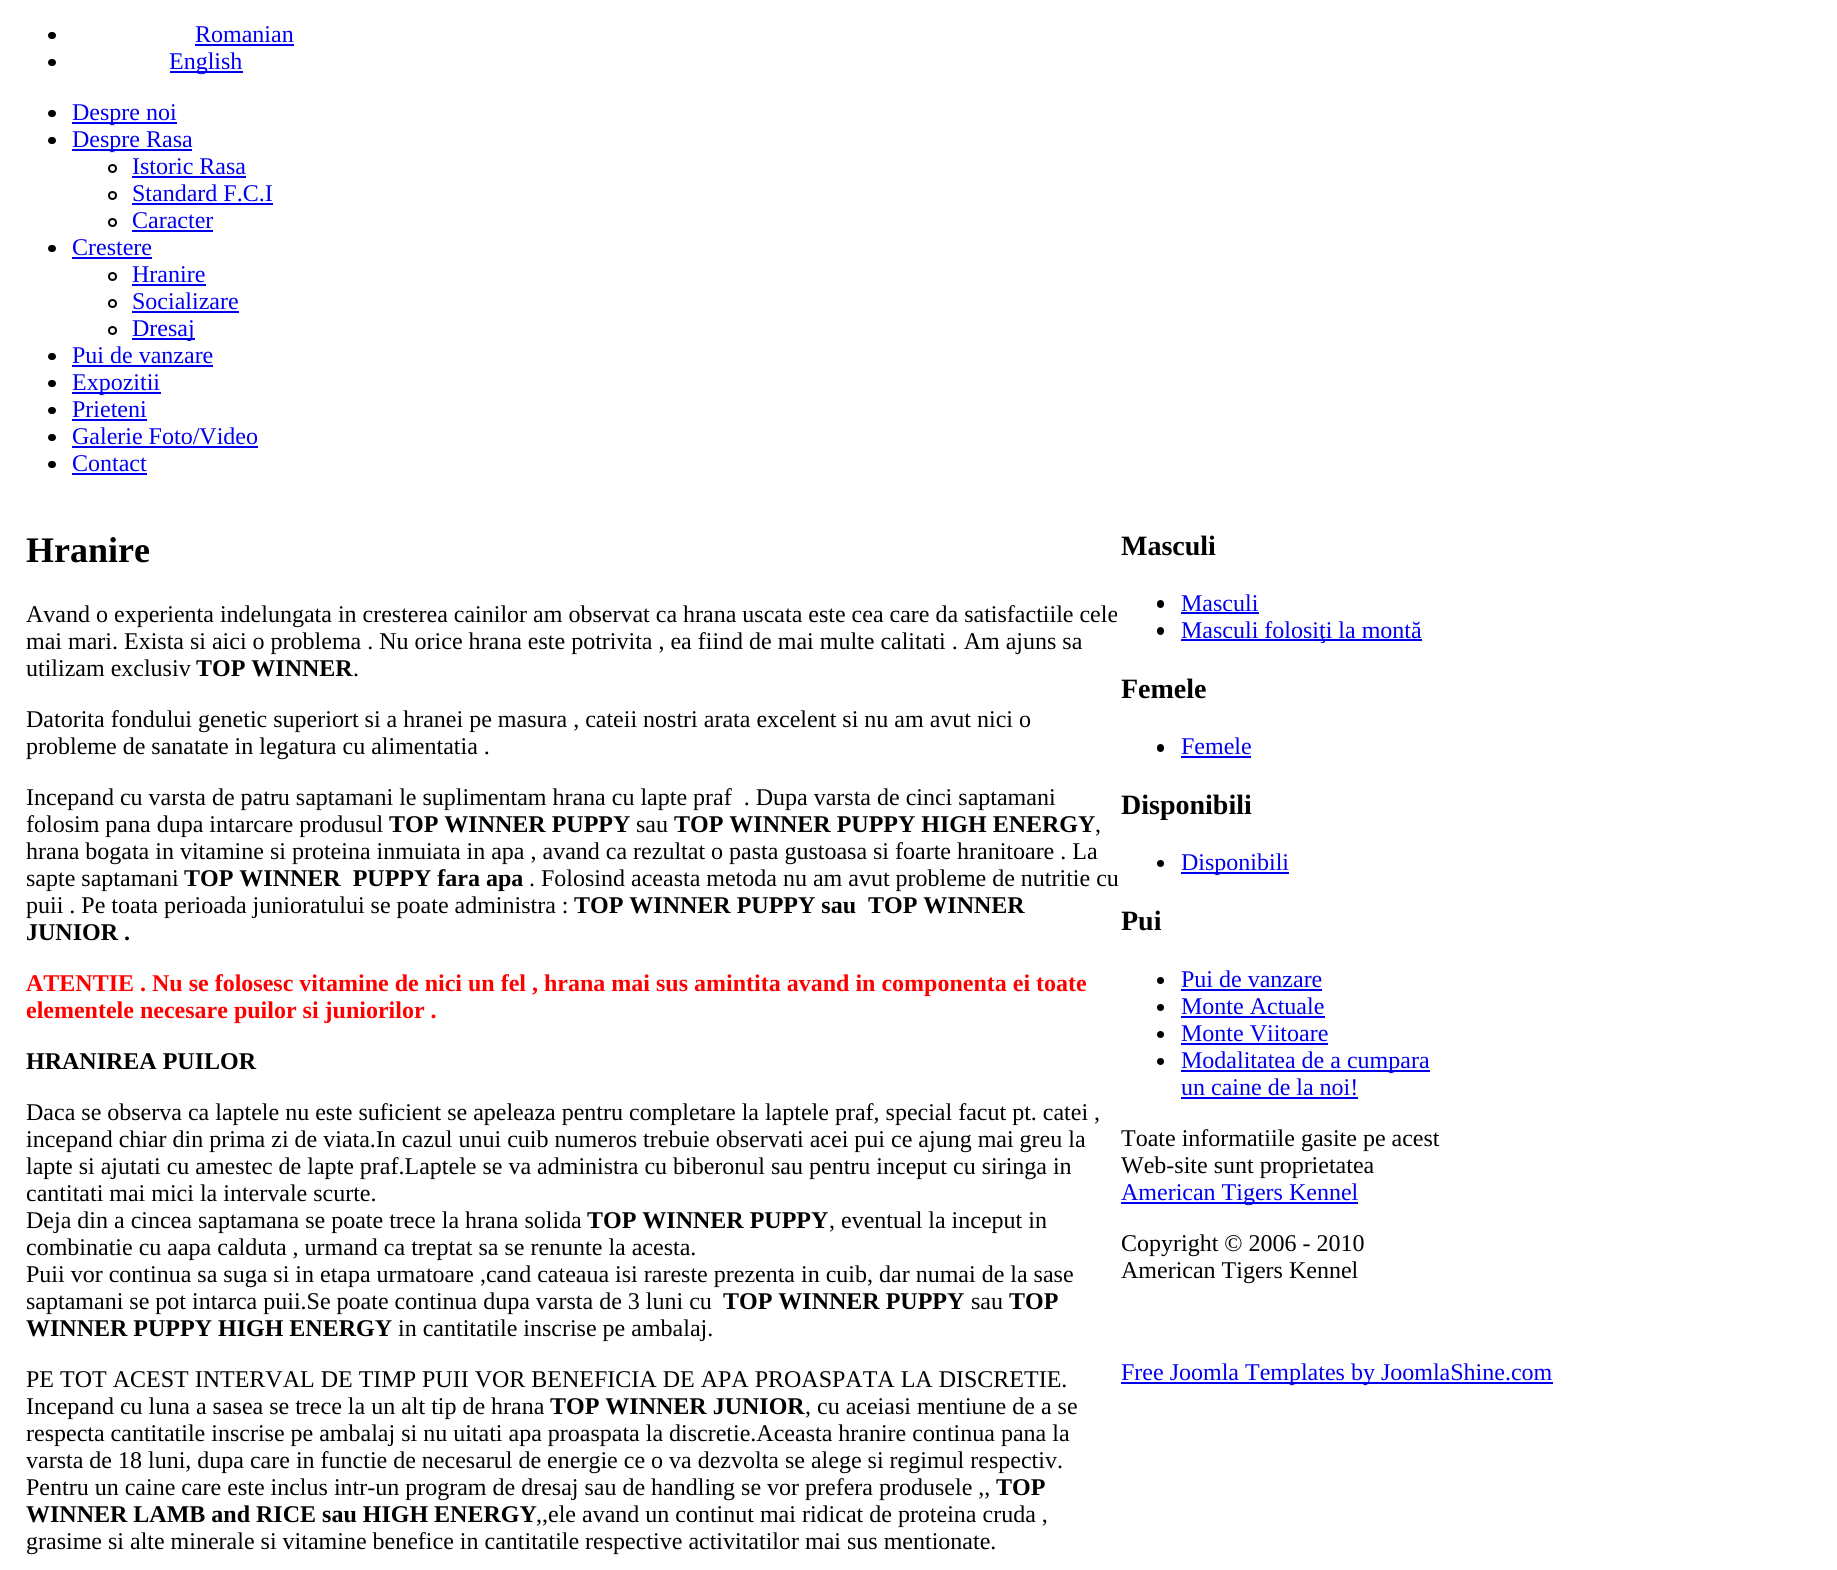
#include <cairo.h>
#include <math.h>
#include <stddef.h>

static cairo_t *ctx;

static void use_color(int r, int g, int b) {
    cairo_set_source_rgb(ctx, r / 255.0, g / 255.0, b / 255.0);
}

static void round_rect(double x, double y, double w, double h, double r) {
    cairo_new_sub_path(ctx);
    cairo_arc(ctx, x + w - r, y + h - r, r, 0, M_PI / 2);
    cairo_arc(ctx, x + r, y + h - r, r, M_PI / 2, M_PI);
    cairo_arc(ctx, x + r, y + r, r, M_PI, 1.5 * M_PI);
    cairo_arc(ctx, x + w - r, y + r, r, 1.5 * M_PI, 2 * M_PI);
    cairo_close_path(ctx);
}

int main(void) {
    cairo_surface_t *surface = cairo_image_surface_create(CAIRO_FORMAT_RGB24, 1837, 1570);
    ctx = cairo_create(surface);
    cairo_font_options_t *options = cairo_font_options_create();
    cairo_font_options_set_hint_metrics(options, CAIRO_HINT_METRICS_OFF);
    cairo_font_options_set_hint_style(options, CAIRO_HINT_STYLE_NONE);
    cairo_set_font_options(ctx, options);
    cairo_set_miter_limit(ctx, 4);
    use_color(255, 255, 255);
    cairo_paint(ctx);
    use_color(0, 0, 0);
    round_rect(48, 32, 8, 7, 3.5);
    cairo_fill(ctx);
    cairo_select_font_face(ctx, "Liberation Serif", CAIRO_FONT_SLANT_NORMAL, CAIRO_FONT_WEIGHT_NORMAL);
    cairo_set_font_size(ctx, 24);
    use_color(0, 0, 238);
    cairo_move_to(ctx, 195, 42);
    cairo_show_text(ctx, "Romanian");
    cairo_rectangle(ctx, 195, 44, 99, 2);
    cairo_fill(ctx);
    use_color(0, 0, 0);
    round_rect(48, 59, 8, 7, 3.5);
    cairo_fill(ctx);
    use_color(0, 0, 238);
    cairo_rectangle(ctx, 170, 71, 73, 2);
    cairo_fill(ctx);
    cairo_move_to(ctx, 169, 69);
    cairo_show_text(ctx, "English");
    use_color(0, 0, 0);
    round_rect(48, 110, 8, 7, 3.5);
    cairo_fill(ctx);
    use_color(0, 0, 238);
    cairo_rectangle(ctx, 72, 122, 105, 2);
    cairo_fill(ctx);
    cairo_move_to(ctx, 72, 120);
    cairo_show_text(ctx, "Despre noi");
    use_color(0, 0, 0);
    round_rect(48, 137, 8, 7, 3.5);
    cairo_fill(ctx);
    use_color(0, 0, 238);
    cairo_rectangle(ctx, 72, 149, 120, 2);
    cairo_fill(ctx);
    cairo_move_to(ctx, 72, 147);
    cairo_show_text(ctx, "Despre Rasa");
    cairo_new_path(ctx);
    cairo_arc(ctx, 112.5, 168.5, 3.5, 0, 2 * M_PI);
    use_color(0, 0, 0);
    cairo_stroke(ctx);
    use_color(0, 0, 238);
    cairo_move_to(ctx, 132, 174);
    cairo_show_text(ctx, "Istoric Rasa");
    cairo_rectangle(ctx, 132, 176, 114, 2);
    cairo_fill(ctx);
    cairo_arc(ctx, 112.5, 195.5, 3.5, 0, 2 * M_PI);
    use_color(0, 0, 0);
    cairo_stroke(ctx);
    use_color(0, 0, 238);
    cairo_move_to(ctx, 132, 201);
    cairo_show_text(ctx, "Standard F.C.I");
    cairo_rectangle(ctx, 132, 203, 141, 2);
    cairo_fill(ctx);
    cairo_arc(ctx, 112.5, 222.5, 3.5, 0, 2 * M_PI);
    use_color(0, 0, 0);
    cairo_stroke(ctx);
    use_color(0, 0, 238);
    cairo_move_to(ctx, 132, 228);
    cairo_show_text(ctx, "Caracter");
    cairo_rectangle(ctx, 132, 230, 81, 2);
    cairo_fill(ctx);
    use_color(0, 0, 0);
    round_rect(48, 245, 8, 7, 3.5);
    cairo_fill(ctx);
    use_color(0, 0, 238);
    cairo_move_to(ctx, 72, 255);
    cairo_show_text(ctx, "Crestere");
    cairo_rectangle(ctx, 72, 257, 80, 2);
    cairo_fill(ctx);
    cairo_arc(ctx, 112.5, 276.5, 3.5, 0, 2 * M_PI);
    use_color(0, 0, 0);
    cairo_stroke(ctx);
    use_color(0, 0, 238);
    cairo_move_to(ctx, 132, 282);
    cairo_show_text(ctx, "Hranire");
    cairo_rectangle(ctx, 132, 284, 74, 2);
    cairo_fill(ctx);
    cairo_arc(ctx, 112.5, 303.5, 3.5, 0, 2 * M_PI);
    use_color(0, 0, 0);
    cairo_stroke(ctx);
    use_color(0, 0, 238);
    cairo_move_to(ctx, 132, 309);
    cairo_show_text(ctx, "Socializare");
    cairo_rectangle(ctx, 132, 311, 107, 2);
    cairo_fill(ctx);
    cairo_arc(ctx, 112.5, 330.5, 3.5, 0, 2 * M_PI);
    use_color(0, 0, 0);
    cairo_stroke(ctx);
    use_color(0, 0, 238);
    cairo_rectangle(ctx, 132, 338, 63, 2);
    cairo_fill(ctx);
    cairo_move_to(ctx, 132, 336);
    cairo_show_text(ctx, "Dresaj");
    use_color(0, 0, 0);
    round_rect(48, 353, 8, 7, 3.5);
    cairo_fill(ctx);
    use_color(0, 0, 238);
    cairo_move_to(ctx, 72, 363);
    cairo_show_text(ctx, "Pui de vanzare");
    cairo_rectangle(ctx, 72, 365, 141, 2);
    cairo_fill(ctx);
    use_color(0, 0, 0);
    round_rect(48, 380, 8, 7, 3.5);
    cairo_fill(ctx);
    use_color(0, 0, 238);
    cairo_rectangle(ctx, 72, 392, 89, 2);
    cairo_fill(ctx);
    cairo_move_to(ctx, 72, 390);
    cairo_show_text(ctx, "Expozitii");
    use_color(0, 0, 0);
    round_rect(48, 407, 8, 7, 3.5);
    cairo_fill(ctx);
    use_color(0, 0, 238);
    cairo_move_to(ctx, 72, 417);
    cairo_show_text(ctx, "Prieteni");
    cairo_rectangle(ctx, 72, 419, 75, 2);
    cairo_fill(ctx);
    use_color(0, 0, 0);
    round_rect(48, 434, 8, 7, 3.5);
    cairo_fill(ctx);
    use_color(0, 0, 238);
    cairo_move_to(ctx, 72, 444);
    cairo_show_text(ctx, "Galerie Foto/Video");
    cairo_rectangle(ctx, 72, 446, 186, 2);
    cairo_fill(ctx);
    use_color(0, 0, 0);
    round_rect(48, 461, 8, 7, 3.5);
    cairo_fill(ctx);
    use_color(0, 0, 238);
    cairo_move_to(ctx, 72, 471);
    cairo_show_text(ctx, "Contact");
    cairo_rectangle(ctx, 72, 473, 75, 2);
    cairo_fill(ctx);
    cairo_select_font_face(ctx, "Liberation Serif", CAIRO_FONT_SLANT_NORMAL, CAIRO_FONT_WEIGHT_BOLD);
    cairo_set_font_size(ctx, 36);
    use_color(0, 0, 0);
    cairo_move_to(ctx, 26, 562);
    cairo_show_text(ctx, "Hranire");
    cairo_select_font_face(ctx, "Liberation Serif", CAIRO_FONT_SLANT_NORMAL, CAIRO_FONT_WEIGHT_NORMAL);
    cairo_set_font_size(ctx, 24);
    cairo_move_to(ctx, 26, 622);
    cairo_show_text(ctx, "Avand o experienta indelungata in cresterea cainilor am observat ca hrana uscata este cea care da satisfactiile cele");
    cairo_move_to(ctx, 26, 649);
    cairo_show_text(ctx, "mai mari. Exista si aici o problema . Nu orice hrana este potrivita , ea fiind de mai multe calitati . Am ajuns sa");
    cairo_move_to(ctx, 26, 676);
    cairo_show_text(ctx, "utilizam exclusiv");
    cairo_select_font_face(ctx, "Liberation Serif", CAIRO_FONT_SLANT_NORMAL, CAIRO_FONT_WEIGHT_BOLD);
    cairo_move_to(ctx, 196, 676);
    cairo_show_text(ctx, "TOP WINNER");
    cairo_select_font_face(ctx, "Liberation Serif", CAIRO_FONT_SLANT_NORMAL, CAIRO_FONT_WEIGHT_NORMAL);
    cairo_move_to(ctx, 353, 676);
    cairo_show_text(ctx, ".");
    cairo_move_to(ctx, 26, 727);
    cairo_show_text(ctx, "Datorita fondului genetic superiort si a hranei pe masura , cateii nostri arata excelent si nu am avut nici o");
    cairo_move_to(ctx, 26, 754);
    cairo_show_text(ctx, "probleme de sanatate in legatura cu alimentatia .");
    cairo_move_to(ctx, 26, 805);
    cairo_show_text(ctx, "Incepand cu varsta de patru saptamani le suplimentam hrana cu lapte praf  . Dupa varsta de cinci saptamani");
    cairo_move_to(ctx, 26, 832);
    cairo_show_text(ctx, "folosim pana dupa intarcare produsul");
    cairo_select_font_face(ctx, "Liberation Serif", CAIRO_FONT_SLANT_NORMAL, CAIRO_FONT_WEIGHT_BOLD);
    cairo_move_to(ctx, 389, 832);
    cairo_show_text(ctx, "TOP WINNER PUPPY");
    cairo_select_font_face(ctx, "Liberation Serif", CAIRO_FONT_SLANT_NORMAL, CAIRO_FONT_WEIGHT_NORMAL);
    cairo_move_to(ctx, 636, 832);
    cairo_show_text(ctx, "sau");
    cairo_select_font_face(ctx, "Liberation Serif", CAIRO_FONT_SLANT_NORMAL, CAIRO_FONT_WEIGHT_BOLD);
    cairo_move_to(ctx, 674, 832);
    cairo_show_text(ctx, "TOP WINNER PUPPY HIGH ENERGY");
    cairo_select_font_face(ctx, "Liberation Serif", CAIRO_FONT_SLANT_NORMAL, CAIRO_FONT_WEIGHT_NORMAL);
    cairo_move_to(ctx, 1095, 832);
    cairo_show_text(ctx, ",");
    cairo_move_to(ctx, 26, 859);
    cairo_show_text(ctx, "hrana bogata in vitamine si proteina inmuiata in apa , avand ca rezultat o pasta gustoasa si foarte hranitoare . La");
    cairo_move_to(ctx, 26, 886);
    cairo_show_text(ctx, "sapte saptamani");
    cairo_select_font_face(ctx, "Liberation Serif", CAIRO_FONT_SLANT_NORMAL, CAIRO_FONT_WEIGHT_BOLD);
    cairo_move_to(ctx, 184, 886);
    cairo_show_text(ctx, "TOP WINNER  PUPPY fara apa");
    cairo_select_font_face(ctx, "Liberation Serif", CAIRO_FONT_SLANT_NORMAL, CAIRO_FONT_WEIGHT_NORMAL);
    cairo_move_to(ctx, 529, 886);
    cairo_show_text(ctx, ". Folosind aceasta metoda nu am avut probleme de nutritie cu");
    cairo_move_to(ctx, 26, 913);
    cairo_show_text(ctx, "puii . Pe toata perioada junioratului se poate administra :");
    cairo_select_font_face(ctx, "Liberation Serif", CAIRO_FONT_SLANT_NORMAL, CAIRO_FONT_WEIGHT_BOLD);
    cairo_move_to(ctx, 574, 913);
    cairo_show_text(ctx, "TOP WINNER PUPPY sau  TOP WINNER");
    cairo_move_to(ctx, 26, 940);
    cairo_show_text(ctx, "JUNIOR .");
    use_color(255, 0, 0);
    cairo_move_to(ctx, 26, 991);
    cairo_show_text(ctx, "ATENTIE . Nu se folosesc vitamine de nici un fel , hrana mai sus amintita avand in componenta ei toate");
    cairo_move_to(ctx, 26, 1018);
    cairo_show_text(ctx, "elementele necesare puilor si juniorilor .");
    use_color(0, 0, 0);
    cairo_move_to(ctx, 26, 1069);
    cairo_show_text(ctx, "HRANIREA PUILOR");
    cairo_select_font_face(ctx, "Liberation Serif", CAIRO_FONT_SLANT_NORMAL, CAIRO_FONT_WEIGHT_NORMAL);
    cairo_move_to(ctx, 26, 1120);
    cairo_show_text(ctx, "Daca se observa ca laptele nu este suficient se apeleaza pentru completare la laptele praf, special facut pt. catei ,");
    cairo_move_to(ctx, 26, 1147);
    cairo_show_text(ctx, "incepand chiar din prima zi de viata.In cazul unui cuib numeros trebuie observati acei pui ce ajung mai greu la");
    cairo_move_to(ctx, 26, 1174);
    cairo_show_text(ctx, "lapte si ajutati cu amestec de lapte praf.Laptele se va administra cu biberonul sau pentru inceput cu siringa in");
    cairo_move_to(ctx, 26, 1201);
    cairo_show_text(ctx, "cantitati mai mici la intervale scurte.");
    cairo_move_to(ctx, 26, 1228);
    cairo_show_text(ctx, "Deja din a cincea saptamana se poate trece la hrana solida");
    cairo_select_font_face(ctx, "Liberation Serif", CAIRO_FONT_SLANT_NORMAL, CAIRO_FONT_WEIGHT_BOLD);
    cairo_move_to(ctx, 587, 1228);
    cairo_show_text(ctx, "TOP WINNER PUPPY");
    cairo_select_font_face(ctx, "Liberation Serif", CAIRO_FONT_SLANT_NORMAL, CAIRO_FONT_WEIGHT_NORMAL);
    cairo_move_to(ctx, 829, 1228);
    cairo_show_text(ctx, ", eventual la inceput in");
    cairo_move_to(ctx, 26, 1255);
    cairo_show_text(ctx, "combinatie cu aapa calduta , urmand ca treptat sa se renunte la acesta.");
    cairo_move_to(ctx, 26, 1282);
    cairo_show_text(ctx, "Puii vor continua sa suga si in etapa urmatoare ,cand cateaua isi rareste prezenta in cuib, dar numai de la sase");
    cairo_move_to(ctx, 26, 1309);
    cairo_show_text(ctx, "saptamani se pot intarca puii.Se poate continua dupa varsta de 3 luni cu");
    cairo_select_font_face(ctx, "Liberation Serif", CAIRO_FONT_SLANT_NORMAL, CAIRO_FONT_WEIGHT_BOLD);
    cairo_move_to(ctx, 723, 1309);
    cairo_show_text(ctx, "TOP WINNER PUPPY");
    cairo_select_font_face(ctx, "Liberation Serif", CAIRO_FONT_SLANT_NORMAL, CAIRO_FONT_WEIGHT_NORMAL);
    cairo_move_to(ctx, 971, 1309);
    cairo_show_text(ctx, "sau");
    cairo_select_font_face(ctx, "Liberation Serif", CAIRO_FONT_SLANT_NORMAL, CAIRO_FONT_WEIGHT_BOLD);
    cairo_move_to(ctx, 1009, 1309);
    cairo_show_text(ctx, "TOP");
    cairo_move_to(ctx, 26, 1336);
    cairo_show_text(ctx, "WINNER PUPPY HIGH ENERGY");
    cairo_select_font_face(ctx, "Liberation Serif", CAIRO_FONT_SLANT_NORMAL, CAIRO_FONT_WEIGHT_NORMAL);
    cairo_move_to(ctx, 398, 1336);
    cairo_show_text(ctx, "in cantitatile inscrise pe ambalaj.");
    cairo_move_to(ctx, 26, 1387);
    cairo_show_text(ctx, "PE TOT ACEST INTERVAL DE TIMP PUII VOR BENEFICIA DE APA PROASPATA LA DISCRETIE.");
    cairo_move_to(ctx, 26, 1414);
    cairo_show_text(ctx, "Incepand cu luna a sasea se trece la un alt tip de hrana");
    cairo_select_font_face(ctx, "Liberation Serif", CAIRO_FONT_SLANT_NORMAL, CAIRO_FONT_WEIGHT_BOLD);
    cairo_move_to(ctx, 550, 1414);
    cairo_show_text(ctx, "TOP WINNER JUNIOR");
    cairo_select_font_face(ctx, "Liberation Serif", CAIRO_FONT_SLANT_NORMAL, CAIRO_FONT_WEIGHT_NORMAL);
    cairo_move_to(ctx, 805, 1414);
    cairo_show_text(ctx, ", cu aceiasi mentiune de a se");
    cairo_move_to(ctx, 26, 1441);
    cairo_show_text(ctx, "respecta cantitatile inscrise pe ambalaj si nu uitati apa proaspata la discretie.Aceasta hranire continua pana la");
    cairo_move_to(ctx, 26, 1468);
    cairo_show_text(ctx, "varsta de 18 luni, dupa care in functie de necesarul de energie ce o va dezvolta se alege si regimul respectiv.");
    cairo_move_to(ctx, 26, 1495);
    cairo_show_text(ctx, "Pentru un caine care este inclus intr-un program de dresaj sau de handling se vor prefera produsele ,,");
    cairo_select_font_face(ctx, "Liberation Serif", CAIRO_FONT_SLANT_NORMAL, CAIRO_FONT_WEIGHT_BOLD);
    cairo_move_to(ctx, 996, 1495);
    cairo_show_text(ctx, "TOP");
    cairo_move_to(ctx, 26, 1522);
    cairo_show_text(ctx, "WINNER LAMB and RICE sau HIGH ENERGY");
    cairo_select_font_face(ctx, "Liberation Serif", CAIRO_FONT_SLANT_NORMAL, CAIRO_FONT_WEIGHT_NORMAL);
    cairo_move_to(ctx, 536, 1522);
    cairo_show_text(ctx, ",,ele avand un continut mai ridicat de proteina cruda ,");
    cairo_move_to(ctx, 26, 1549);
    cairo_show_text(ctx, "grasime si alte minerale si vitamine benefice in cantitatile respective activitatilor mai sus mentionate.");
    cairo_select_font_face(ctx, "Liberation Serif", CAIRO_FONT_SLANT_NORMAL, CAIRO_FONT_WEIGHT_BOLD);
    cairo_set_font_size(ctx, 28);
    cairo_move_to(ctx, 1121, 555);
    cairo_show_text(ctx, "Masculi");
    round_rect(1157, 600, 7, 8, 3.5);
    cairo_fill(ctx);
    cairo_select_font_face(ctx, "Liberation Serif", CAIRO_FONT_SLANT_NORMAL, CAIRO_FONT_WEIGHT_NORMAL);
    cairo_set_font_size(ctx, 24);
    use_color(0, 0, 238);
    cairo_move_to(ctx, 1181, 611);
    cairo_show_text(ctx, "Masculi");
    cairo_rectangle(ctx, 1181, 612, 78, 2);
    cairo_fill(ctx);
    use_color(0, 0, 0);
    round_rect(1157, 627, 7, 8, 3.5);
    cairo_fill(ctx);
    use_color(0, 0, 238);
    cairo_rectangle(ctx, 1181, 639, 241, 2);
    cairo_fill(ctx);
    cairo_move_to(ctx, 1181, 638);
    cairo_show_text(ctx, "Masculi folosiţi la montă");
    cairo_select_font_face(ctx, "Liberation Serif", CAIRO_FONT_SLANT_NORMAL, CAIRO_FONT_WEIGHT_BOLD);
    cairo_set_font_size(ctx, 28);
    use_color(0, 0, 0);
    cairo_move_to(ctx, 1121, 698);
    cairo_show_text(ctx, "Femele");
    round_rect(1157, 744, 7, 8, 3.5);
    cairo_fill(ctx);
    cairo_select_font_face(ctx, "Liberation Serif", CAIRO_FONT_SLANT_NORMAL, CAIRO_FONT_WEIGHT_NORMAL);
    cairo_set_font_size(ctx, 24);
    use_color(0, 0, 238);
    cairo_move_to(ctx, 1181, 754);
    cairo_show_text(ctx, "Femele");
    cairo_rectangle(ctx, 1181, 756, 70, 2);
    cairo_fill(ctx);
    cairo_select_font_face(ctx, "Liberation Serif", CAIRO_FONT_SLANT_NORMAL, CAIRO_FONT_WEIGHT_BOLD);
    cairo_set_font_size(ctx, 28);
    use_color(0, 0, 0);
    cairo_move_to(ctx, 1121, 814);
    cairo_show_text(ctx, "Disponibili");
    cairo_new_path(ctx);
    cairo_arc(ctx, 1160.5, 863.5, 3.5, 0, 2 * M_PI);
    cairo_fill(ctx);
    use_color(0, 0, 238);
    cairo_rectangle(ctx, 1181, 872, 108, 2);
    cairo_fill(ctx);
    cairo_select_font_face(ctx, "Liberation Serif", CAIRO_FONT_SLANT_NORMAL, CAIRO_FONT_WEIGHT_NORMAL);
    cairo_set_font_size(ctx, 24);
    cairo_move_to(ctx, 1181, 870);
    cairo_show_text(ctx, "Disponibili");
    cairo_select_font_face(ctx, "Liberation Serif", CAIRO_FONT_SLANT_NORMAL, CAIRO_FONT_WEIGHT_BOLD);
    cairo_set_font_size(ctx, 28);
    use_color(0, 0, 0);
    cairo_move_to(ctx, 1121, 930);
    cairo_show_text(ctx, "Pui");
    cairo_new_path(ctx);
    cairo_arc(ctx, 1160.5, 980.5, 3.5, 0, 2 * M_PI);
    cairo_fill(ctx);
    cairo_select_font_face(ctx, "Liberation Serif", CAIRO_FONT_SLANT_NORMAL, CAIRO_FONT_WEIGHT_NORMAL);
    cairo_set_font_size(ctx, 24);
    use_color(0, 0, 238);
    cairo_move_to(ctx, 1181, 987);
    cairo_show_text(ctx, "Pui de vanzare");
    cairo_rectangle(ctx, 1181, 989, 141, 2);
    cairo_fill(ctx);
    use_color(0, 0, 0);
    cairo_arc(ctx, 1160.5, 1007.5, 3.5, 0, 2 * M_PI);
    cairo_fill(ctx);
    use_color(0, 0, 238);
    cairo_move_to(ctx, 1181, 1014);
    cairo_show_text(ctx, "Monte Actuale");
    cairo_rectangle(ctx, 1181, 1016, 144, 2);
    cairo_fill(ctx);
    use_color(0, 0, 0);
    cairo_arc(ctx, 1160.5, 1034.5, 3.5, 0, 2 * M_PI);
    cairo_fill(ctx);
    use_color(0, 0, 238);
    cairo_move_to(ctx, 1181, 1041);
    cairo_show_text(ctx, "Monte Viitoare");
    cairo_rectangle(ctx, 1181, 1043, 147, 2);
    cairo_fill(ctx);
    use_color(0, 0, 0);
    cairo_arc(ctx, 1160.5, 1061.5, 3.5, 0, 2 * M_PI);
    cairo_fill(ctx);
    use_color(0, 0, 238);
    cairo_rectangle(ctx, 1181, 1070, 249, 2);
    cairo_fill(ctx);
    cairo_move_to(ctx, 1181, 1068);
    cairo_show_text(ctx, "Modalitatea de a cumpara");
    cairo_move_to(ctx, 1181, 1095);
    cairo_show_text(ctx, "un caine de la noi!");
    cairo_rectangle(ctx, 1181, 1097, 177, 2);
    cairo_fill(ctx);
    use_color(0, 0, 0);
    cairo_move_to(ctx, 1121, 1146);
    cairo_show_text(ctx, "Toate informatiile gasite pe acest");
    cairo_move_to(ctx, 1121, 1173);
    cairo_show_text(ctx, "Web-site sunt proprietatea");
    use_color(0, 0, 238);
    cairo_rectangle(ctx, 1121, 1202, 237, 2);
    cairo_fill(ctx);
    cairo_move_to(ctx, 1121, 1200);
    cairo_show_text(ctx, "American Tigers Kennel");
    use_color(0, 0, 0);
    cairo_move_to(ctx, 1121, 1251);
    cairo_show_text(ctx, "Copyright © 2006 - 2010");
    cairo_move_to(ctx, 1121, 1278);
    cairo_show_text(ctx, "American Tigers Kennel");
    use_color(0, 0, 238);
    cairo_rectangle(ctx, 1121, 1382, 432, 2);
    cairo_fill(ctx);
    cairo_move_to(ctx, 1121, 1380);
    cairo_show_text(ctx, "Free Joomla Templates by JoomlaShine.com");
    cairo_surface_write_to_png(surface, "result.png");
    cairo_font_options_destroy(options);
    cairo_destroy(ctx);
    cairo_surface_destroy(surface);
    return 0;
}
